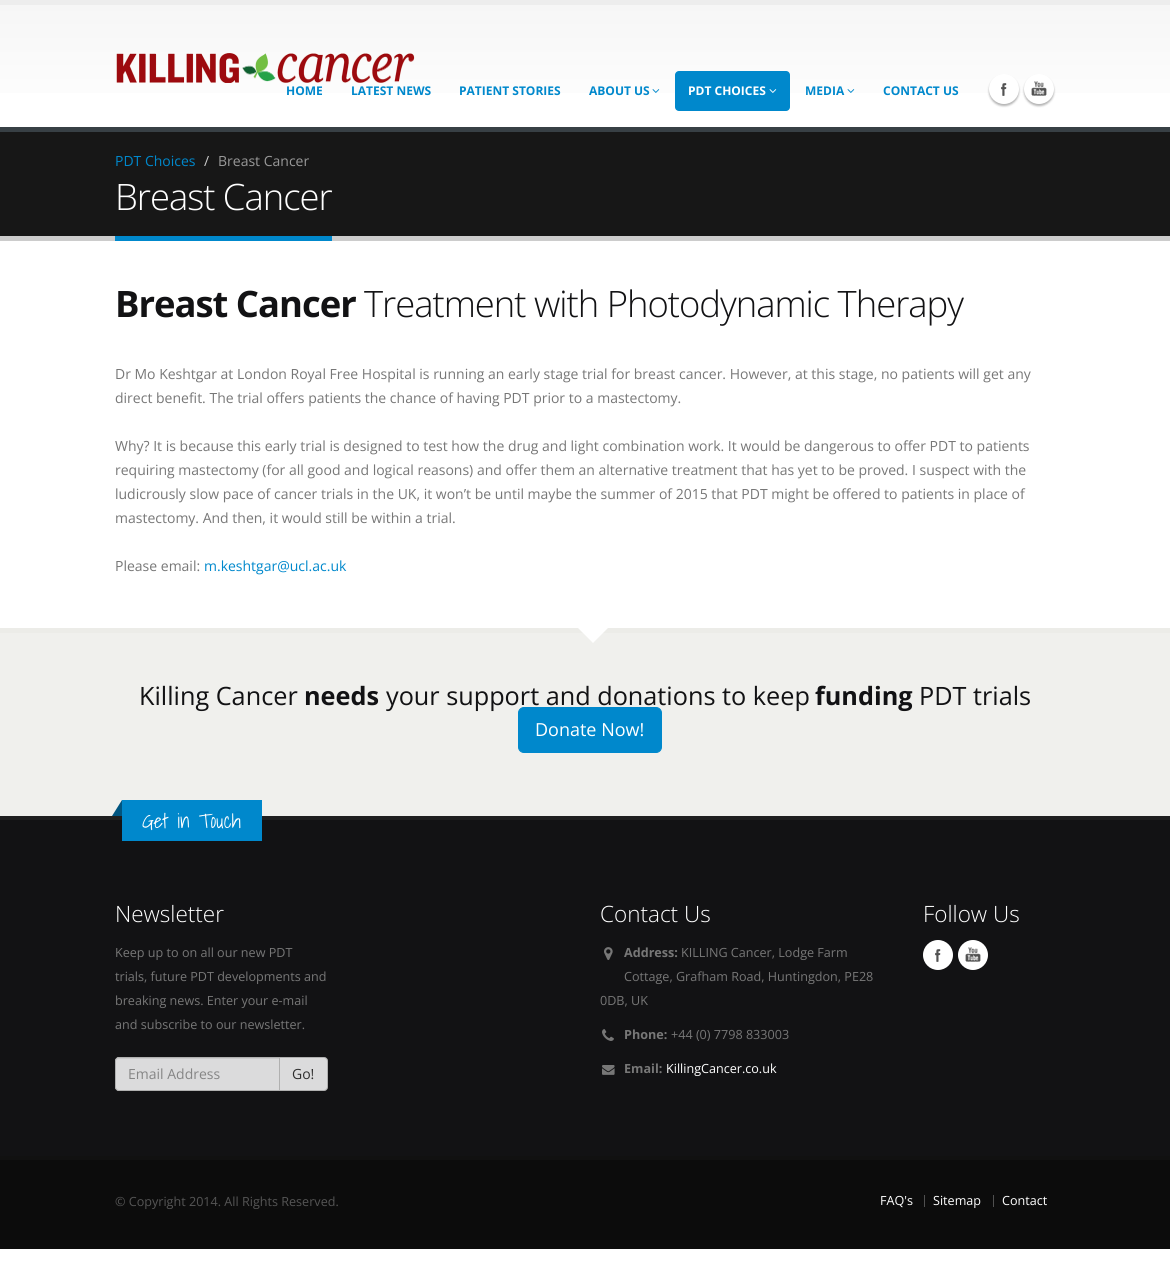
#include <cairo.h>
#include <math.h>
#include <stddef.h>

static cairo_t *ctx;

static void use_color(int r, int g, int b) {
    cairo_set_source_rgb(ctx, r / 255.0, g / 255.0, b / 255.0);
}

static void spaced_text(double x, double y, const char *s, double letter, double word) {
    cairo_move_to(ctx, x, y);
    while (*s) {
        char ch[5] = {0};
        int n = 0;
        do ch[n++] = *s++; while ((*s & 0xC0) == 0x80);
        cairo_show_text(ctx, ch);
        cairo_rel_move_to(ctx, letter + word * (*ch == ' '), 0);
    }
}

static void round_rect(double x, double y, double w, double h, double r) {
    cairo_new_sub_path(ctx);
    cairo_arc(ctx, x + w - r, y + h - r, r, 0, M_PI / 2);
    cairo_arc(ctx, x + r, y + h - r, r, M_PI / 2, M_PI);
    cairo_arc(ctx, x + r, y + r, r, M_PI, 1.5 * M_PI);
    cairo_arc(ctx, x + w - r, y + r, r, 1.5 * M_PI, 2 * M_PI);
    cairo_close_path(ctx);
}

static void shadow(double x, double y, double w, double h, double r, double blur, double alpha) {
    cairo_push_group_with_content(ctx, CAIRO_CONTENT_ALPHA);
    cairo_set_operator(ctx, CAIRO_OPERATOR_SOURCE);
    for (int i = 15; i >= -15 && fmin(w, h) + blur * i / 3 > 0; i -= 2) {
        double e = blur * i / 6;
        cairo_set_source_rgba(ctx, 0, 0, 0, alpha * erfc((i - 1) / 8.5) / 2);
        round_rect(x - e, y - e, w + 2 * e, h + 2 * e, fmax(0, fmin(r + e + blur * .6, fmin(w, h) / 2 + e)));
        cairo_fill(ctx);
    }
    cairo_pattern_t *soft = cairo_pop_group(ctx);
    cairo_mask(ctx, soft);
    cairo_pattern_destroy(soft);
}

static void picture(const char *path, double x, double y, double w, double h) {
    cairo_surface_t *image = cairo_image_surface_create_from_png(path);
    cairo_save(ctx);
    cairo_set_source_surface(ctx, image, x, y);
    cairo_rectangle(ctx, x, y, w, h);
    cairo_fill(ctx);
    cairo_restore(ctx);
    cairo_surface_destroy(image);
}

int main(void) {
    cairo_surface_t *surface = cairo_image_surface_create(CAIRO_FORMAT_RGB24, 1170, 1270);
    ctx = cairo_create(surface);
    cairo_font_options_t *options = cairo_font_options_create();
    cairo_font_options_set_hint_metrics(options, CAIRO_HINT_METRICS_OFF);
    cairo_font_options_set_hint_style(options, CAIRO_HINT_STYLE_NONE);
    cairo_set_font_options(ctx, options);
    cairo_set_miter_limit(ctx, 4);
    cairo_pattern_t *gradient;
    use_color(255, 255, 255);
    cairo_paint(ctx);
    gradient = cairo_pattern_create_linear(585, 5, 585, 127);
    cairo_pattern_add_color_stop_rgba(gradient, 0, 0.965, 0.965, 0.965, 1);
    cairo_pattern_add_color_stop_rgba(gradient, 1, 1, 1, 1, 1);
    cairo_set_source(ctx, gradient);
    cairo_pattern_destroy(gradient);
    cairo_rectangle(ctx, 0, 5, 1170, 88);
    cairo_fill(ctx);
    use_color(237, 237, 237);
    cairo_rectangle(ctx, 0, 0, 1170, 5);
    cairo_fill(ctx);
    picture("img1.png", 116, 53, 299, 30);
    cairo_select_font_face(ctx, "Open Sans", CAIRO_FONT_SLANT_NORMAL, CAIRO_FONT_WEIGHT_BOLD);
    cairo_set_font_size(ctx, 12);
    use_color(0, 136, 204);
    cairo_move_to(ctx, 286, 95);
    cairo_show_text(ctx, "HOME");
    cairo_move_to(ctx, 351, 95);
    cairo_show_text(ctx, "LATEST NEWS");
    cairo_move_to(ctx, 459, 95);
    cairo_show_text(ctx, "PATIENT STORIES");
    cairo_move_to(ctx, 589, 95);
    cairo_show_text(ctx, "ABOUT US");
    picture("img2.png", 652, 89, 8, 4);
    round_rect(675, 71, 115, 40, 4);
    cairo_fill(ctx);
    use_color(255, 255, 255);
    cairo_move_to(ctx, 688, 95);
    cairo_show_text(ctx, "PDT CHOICES");
    picture("img3.png", 769, 89, 8, 4);
    use_color(0, 136, 204);
    cairo_move_to(ctx, 805, 95);
    cairo_show_text(ctx, "MEDIA");
    picture("img2.png", 847, 89, 8, 4);
    cairo_move_to(ctx, 883, 95);
    cairo_show_text(ctx, "CONTACT US");
    use_color(0, 0, 0);
    shadow(989, 76, 30, 30, 15, 1, 0.3);
    use_color(255, 255, 255);
    cairo_arc(ctx, 1004, 89, 15, 0, 2 * M_PI);
    cairo_fill(ctx);
    picture("img4.png", 1001, 83, 6, 13);
    use_color(0, 0, 0);
    shadow(1024, 76, 30, 30, 15, 1, 0.3);
    use_color(255, 255, 255);
    cairo_arc(ctx, 1039, 89, 15, 0, 2 * M_PI);
    cairo_fill(ctx);
    picture("img5.png", 1031, 81, 16, 15);
    use_color(23, 23, 23);
    cairo_rectangle(ctx, 0, 132, 1170, 104);
    cairo_fill(ctx);
    use_color(56, 64, 69);
    cairo_rectangle(ctx, 0, 127, 1170, 5);
    cairo_fill(ctx);
    use_color(204, 204, 204);
    cairo_rectangle(ctx, 0, 236, 1170, 5);
    cairo_fill(ctx);
    cairo_select_font_face(ctx, "Open Sans", CAIRO_FONT_SLANT_NORMAL, CAIRO_FONT_WEIGHT_NORMAL);
    cairo_set_font_size(ctx, 14);
    use_color(0, 136, 204);
    cairo_move_to(ctx, 115, 166);
    cairo_show_text(ctx, "PDT Choices");
    use_color(204, 204, 204);
    cairo_move_to(ctx, 204, 166);
    cairo_show_text(ctx, "/");
    use_color(153, 153, 153);
    cairo_move_to(ctx, 218, 166);
    cairo_show_text(ctx, "Breast Cancer");
    use_color(0, 136, 204);
    cairo_rectangle(ctx, 115, 236, 217, 5);
    cairo_fill(ctx);
    cairo_select_font_face(ctx, "Open Sans Light", CAIRO_FONT_SLANT_NORMAL, CAIRO_FONT_WEIGHT_NORMAL);
    cairo_set_font_size(ctx, 36.4);
    use_color(255, 255, 255);
    spaced_text(115, 210, "Breast Cancer", -1, 0);
    cairo_select_font_face(ctx, "Open Sans", CAIRO_FONT_SLANT_NORMAL, CAIRO_FONT_WEIGHT_BOLD);
    use_color(18, 18, 20);
    spaced_text(115, 317, "Breast Cancer", -1, 0);
    cairo_select_font_face(ctx, "Open Sans Light", CAIRO_FONT_SLANT_NORMAL, CAIRO_FONT_WEIGHT_NORMAL);
    spaced_text(364, 317, "Treatment with Photodynamic Therapy", -1, 0);
    cairo_select_font_face(ctx, "Open Sans", CAIRO_FONT_SLANT_NORMAL, CAIRO_FONT_WEIGHT_NORMAL);
    cairo_set_font_size(ctx, 14);
    use_color(119, 119, 119);
    cairo_move_to(ctx, 115, 379);
    cairo_show_text(ctx, "Dr Mo Keshtgar at London Royal Free Hospital is running an early stage trial for breast cancer. However, at this stage, no patients will get any");
    cairo_move_to(ctx, 115, 403);
    cairo_show_text(ctx, "direct benefit. The trial offers patients the chance of having PDT prior to a mastectomy.");
    cairo_move_to(ctx, 115, 451);
    cairo_show_text(ctx, "Why? It is because this early trial is designed to test how the drug and light combination work. It would be dangerous to offer PDT to patients");
    cairo_move_to(ctx, 115, 475);
    cairo_show_text(ctx, "requiring mastectomy (for all good and logical reasons) and offer them an alternative treatment that has yet to be proved. I suspect with the");
    cairo_move_to(ctx, 115, 499);
    cairo_show_text(ctx, "ludicrously slow pace of cancer trials in the UK, it won’t be until maybe the summer of 2015 that PDT might be offered to patients in place of");
    cairo_move_to(ctx, 115, 523);
    cairo_show_text(ctx, "mastectomy. And then, it would still be within a trial.");
    cairo_move_to(ctx, 115, 571);
    cairo_show_text(ctx, "Please email:");
    use_color(0, 136, 204);
    cairo_move_to(ctx, 204, 571);
    cairo_show_text(ctx, "m.keshtgar@ucl.ac.uk");
    use_color(240, 240, 237);
    cairo_rectangle(ctx, 0, 633, 1170, 183);
    cairo_fill(ctx);
    use_color(236, 236, 232);
    cairo_rectangle(ctx, 0, 628, 1170, 5);
    cairo_fill(ctx);
    use_color(255, 255, 255);
    cairo_new_path(ctx);
    cairo_move_to(ctx, 578, 628);
    cairo_line_to(ctx, 608, 628);
    cairo_line_to(ctx, 593, 643);
    cairo_close_path(ctx);
    cairo_fill(ctx);
    cairo_set_font_size(ctx, 25.25);
    use_color(18, 18, 20);
    cairo_move_to(ctx, 139, 705);
    cairo_show_text(ctx, "Killing Cancer");
    cairo_select_font_face(ctx, "Open Sans", CAIRO_FONT_SLANT_NORMAL, CAIRO_FONT_WEIGHT_BOLD);
    cairo_move_to(ctx, 304, 705);
    cairo_show_text(ctx, "needs");
    cairo_select_font_face(ctx, "Open Sans", CAIRO_FONT_SLANT_NORMAL, CAIRO_FONT_WEIGHT_NORMAL);
    cairo_move_to(ctx, 386, 705);
    cairo_show_text(ctx, "your support and donations to keep");
    cairo_select_font_face(ctx, "Open Sans", CAIRO_FONT_SLANT_NORMAL, CAIRO_FONT_WEIGHT_BOLD);
    cairo_move_to(ctx, 815, 705);
    cairo_show_text(ctx, "funding");
    cairo_select_font_face(ctx, "Open Sans", CAIRO_FONT_SLANT_NORMAL, CAIRO_FONT_WEIGHT_NORMAL);
    cairo_move_to(ctx, 919, 705);
    cairo_show_text(ctx, "PDT trials");
    use_color(0, 136, 204);
    round_rect(518.5, 707.5, 143, 45, 5.5);
    cairo_fill_preserve(ctx);
    cairo_set_line_width(ctx, 1);
    cairo_stroke(ctx);
    cairo_set_font_size(ctx, 18);
    use_color(255, 255, 255);
    cairo_move_to(ctx, 535, 736);
    cairo_show_text(ctx, "Donate Now!");
    use_color(18, 18, 20);
    cairo_rectangle(ctx, 0, 820, 1170, 336);
    cairo_fill(ctx);
    use_color(31, 31, 31);
    cairo_rectangle(ctx, 0, 816, 1170, 4);
    cairo_fill(ctx);
    use_color(0, 136, 204);
    cairo_rectangle(ctx, 122, 800, 140, 41);
    cairo_fill(ctx);
    use_color(0, 85, 128);
    cairo_new_path(ctx);
    cairo_move_to(ctx, 122, 800);
    cairo_line_to(ctx, 122, 816);
    cairo_line_to(ctx, 112, 816);
    cairo_close_path(ctx);
    cairo_fill(ctx);
    cairo_select_font_face(ctx, "Shadows Into Light Light", CAIRO_FONT_SLANT_NORMAL, CAIRO_FONT_WEIGHT_NORMAL);
    cairo_set_font_size(ctx, 20);
    use_color(255, 255, 255);
    cairo_move_to(ctx, 142, 828);
    cairo_show_text(ctx, "Get in Touch");
    cairo_select_font_face(ctx, "Open Sans Light", CAIRO_FONT_SLANT_NORMAL, CAIRO_FONT_WEIGHT_NORMAL);
    cairo_set_font_size(ctx, 22.5);
    cairo_move_to(ctx, 115, 922);
    cairo_show_text(ctx, "Newsletter");
    cairo_select_font_face(ctx, "Open Sans", CAIRO_FONT_SLANT_NORMAL, CAIRO_FONT_WEIGHT_NORMAL);
    cairo_set_font_size(ctx, 12.6);
    use_color(119, 119, 119);
    cairo_move_to(ctx, 115, 957);
    cairo_show_text(ctx, "Keep up to on all our new PDT");
    cairo_move_to(ctx, 115, 981);
    cairo_show_text(ctx, "trials, future PDT developments and");
    cairo_move_to(ctx, 115, 1005);
    cairo_show_text(ctx, "breaking news. Enter your e-mail");
    cairo_move_to(ctx, 115, 1029);
    cairo_show_text(ctx, "and subscribe to our newsletter.");
    use_color(219, 219, 220);
    cairo_new_path(ctx);
    cairo_move_to(ctx, 279.5, 1057.5);
    cairo_line_to(ctx, 324, 1057.5);
    cairo_curve_to(ctx, 326, 1057.5, 327.5, 1059, 327.5, 1061);
    cairo_line_to(ctx, 327.5, 1087);
    cairo_curve_to(ctx, 327.5, 1089, 326, 1090.5, 324, 1090.5);
    cairo_line_to(ctx, 279.5, 1090.5);
    cairo_close_path(ctx);
    cairo_fill_preserve(ctx);
    use_color(176, 176, 176);
    cairo_stroke(ctx);
    use_color(219, 219, 220);
    cairo_new_path(ctx);
    cairo_move_to(ctx, 119, 1057);
    cairo_line_to(ctx, 280, 1057);
    cairo_line_to(ctx, 280, 1091);
    cairo_line_to(ctx, 119, 1091);
    cairo_curve_to(ctx, 117, 1091, 115, 1089, 115, 1087);
    cairo_line_to(ctx, 115, 1061);
    cairo_curve_to(ctx, 115, 1059, 117, 1057, 119, 1057);
    cairo_close_path(ctx);
    cairo_fill(ctx);
    use_color(203, 203, 204);
    cairo_new_path(ctx);
    cairo_move_to(ctx, 119, 1059);
    cairo_line_to(ctx, 279, 1059);
    cairo_line_to(ctx, 279, 1058);
    cairo_line_to(ctx, 119, 1058);
    cairo_curve_to(ctx, 117, 1058, 116, 1060, 116, 1062);
    cairo_curve_to(ctx, 116, 1060, 117, 1059, 119, 1059);
    cairo_close_path(ctx);
    cairo_fill(ctx);
    cairo_new_path(ctx);
    cairo_move_to(ctx, 119, 1057.5);
    cairo_line_to(ctx, 279.5, 1057.5);
    cairo_line_to(ctx, 279.5, 1090.5);
    cairo_line_to(ctx, 119, 1090.5);
    cairo_curve_to(ctx, 117, 1090.5, 115.5, 1089, 115.5, 1087);
    cairo_line_to(ctx, 115.5, 1061);
    cairo_curve_to(ctx, 115.5, 1059, 117, 1057.5, 119, 1057.5);
    cairo_close_path(ctx);
    use_color(176, 176, 176);
    cairo_stroke(ctx);
    cairo_set_font_size(ctx, 14);
    use_color(133, 133, 133);
    cairo_move_to(ctx, 128, 1079);
    cairo_show_text(ctx, "Email Address");
    use_color(46, 46, 46);
    cairo_move_to(ctx, 292, 1079);
    cairo_show_text(ctx, "Go!");
    cairo_select_font_face(ctx, "Open Sans Light", CAIRO_FONT_SLANT_NORMAL, CAIRO_FONT_WEIGHT_NORMAL);
    cairo_set_font_size(ctx, 22.5);
    use_color(255, 255, 255);
    cairo_move_to(ctx, 600, 922);
    cairo_show_text(ctx, "Contact Us");
    picture("img6.png", 604, 947, 9, 13);
    cairo_select_font_face(ctx, "Open Sans", CAIRO_FONT_SLANT_NORMAL, CAIRO_FONT_WEIGHT_BOLD);
    cairo_set_font_size(ctx, 12.6);
    use_color(119, 119, 119);
    cairo_move_to(ctx, 624, 957);
    cairo_show_text(ctx, "Address:");
    cairo_select_font_face(ctx, "Open Sans", CAIRO_FONT_SLANT_NORMAL, CAIRO_FONT_WEIGHT_NORMAL);
    cairo_move_to(ctx, 681, 957);
    cairo_show_text(ctx, "KILLING Cancer, Lodge Farm");
    cairo_move_to(ctx, 624, 981);
    cairo_show_text(ctx, "Cottage, Grafham Road, Huntingdon, PE28");
    cairo_move_to(ctx, 600, 1005);
    cairo_show_text(ctx, "0DB, UK");
    picture("img7.png", 602, 1029, 12, 12);
    cairo_select_font_face(ctx, "Open Sans", CAIRO_FONT_SLANT_NORMAL, CAIRO_FONT_WEIGHT_BOLD);
    cairo_move_to(ctx, 624, 1039);
    cairo_show_text(ctx, "Phone:");
    cairo_select_font_face(ctx, "Open Sans", CAIRO_FONT_SLANT_NORMAL, CAIRO_FONT_WEIGHT_NORMAL);
    cairo_move_to(ctx, 671, 1039);
    cairo_show_text(ctx, "+44 (0) 7798 833003");
    picture("img8.png", 602, 1065, 13, 10);
    cairo_select_font_face(ctx, "Open Sans", CAIRO_FONT_SLANT_NORMAL, CAIRO_FONT_WEIGHT_BOLD);
    cairo_move_to(ctx, 624, 1073);
    cairo_show_text(ctx, "Email:");
    cairo_select_font_face(ctx, "Open Sans", CAIRO_FONT_SLANT_NORMAL, CAIRO_FONT_WEIGHT_NORMAL);
    use_color(255, 255, 255);
    cairo_move_to(ctx, 666, 1073);
    cairo_show_text(ctx, "KillingCancer.co.uk");
    cairo_select_font_face(ctx, "Open Sans Light", CAIRO_FONT_SLANT_NORMAL, CAIRO_FONT_WEIGHT_NORMAL);
    cairo_set_font_size(ctx, 22.5);
    cairo_move_to(ctx, 923, 922);
    cairo_show_text(ctx, "Follow Us");
    cairo_new_path(ctx);
    cairo_arc(ctx, 938, 955, 15, 0, 2 * M_PI);
    cairo_fill(ctx);
    picture("img4.png", 935, 949, 6, 13);
    cairo_arc(ctx, 973, 955, 15, 0, 2 * M_PI);
    cairo_fill(ctx);
    picture("img5.png", 965, 947, 16, 15);
    use_color(12, 12, 12);
    cairo_rectangle(ctx, 0, 1160, 1170, 89);
    cairo_fill(ctx);
    use_color(17, 17, 17);
    cairo_rectangle(ctx, 0, 1156, 1170, 4);
    cairo_fill(ctx);
    cairo_select_font_face(ctx, "Open Sans", CAIRO_FONT_SLANT_NORMAL, CAIRO_FONT_WEIGHT_NORMAL);
    cairo_set_font_size(ctx, 12.6);
    use_color(85, 85, 85);
    cairo_move_to(ctx, 115, 1206);
    cairo_show_text(ctx, "© Copyright 2014. All Rights Reserved.");
    use_color(255, 255, 255);
    cairo_move_to(ctx, 880, 1205);
    cairo_show_text(ctx, "FAQ's");
    use_color(80, 80, 80);
    cairo_rectangle(ctx, 924, 1195, 1, 12);
    cairo_fill(ctx);
    use_color(255, 255, 255);
    cairo_move_to(ctx, 933, 1205);
    cairo_show_text(ctx, "Sitemap");
    use_color(80, 80, 80);
    cairo_rectangle(ctx, 993, 1195, 1, 12);
    cairo_fill(ctx);
    use_color(255, 255, 255);
    cairo_move_to(ctx, 1002, 1205);
    cairo_show_text(ctx, "Contact");
    cairo_surface_write_to_png(surface, "result.png");
    cairo_font_options_destroy(options);
    cairo_destroy(ctx);
    cairo_surface_destroy(surface);
    return 0;
}
